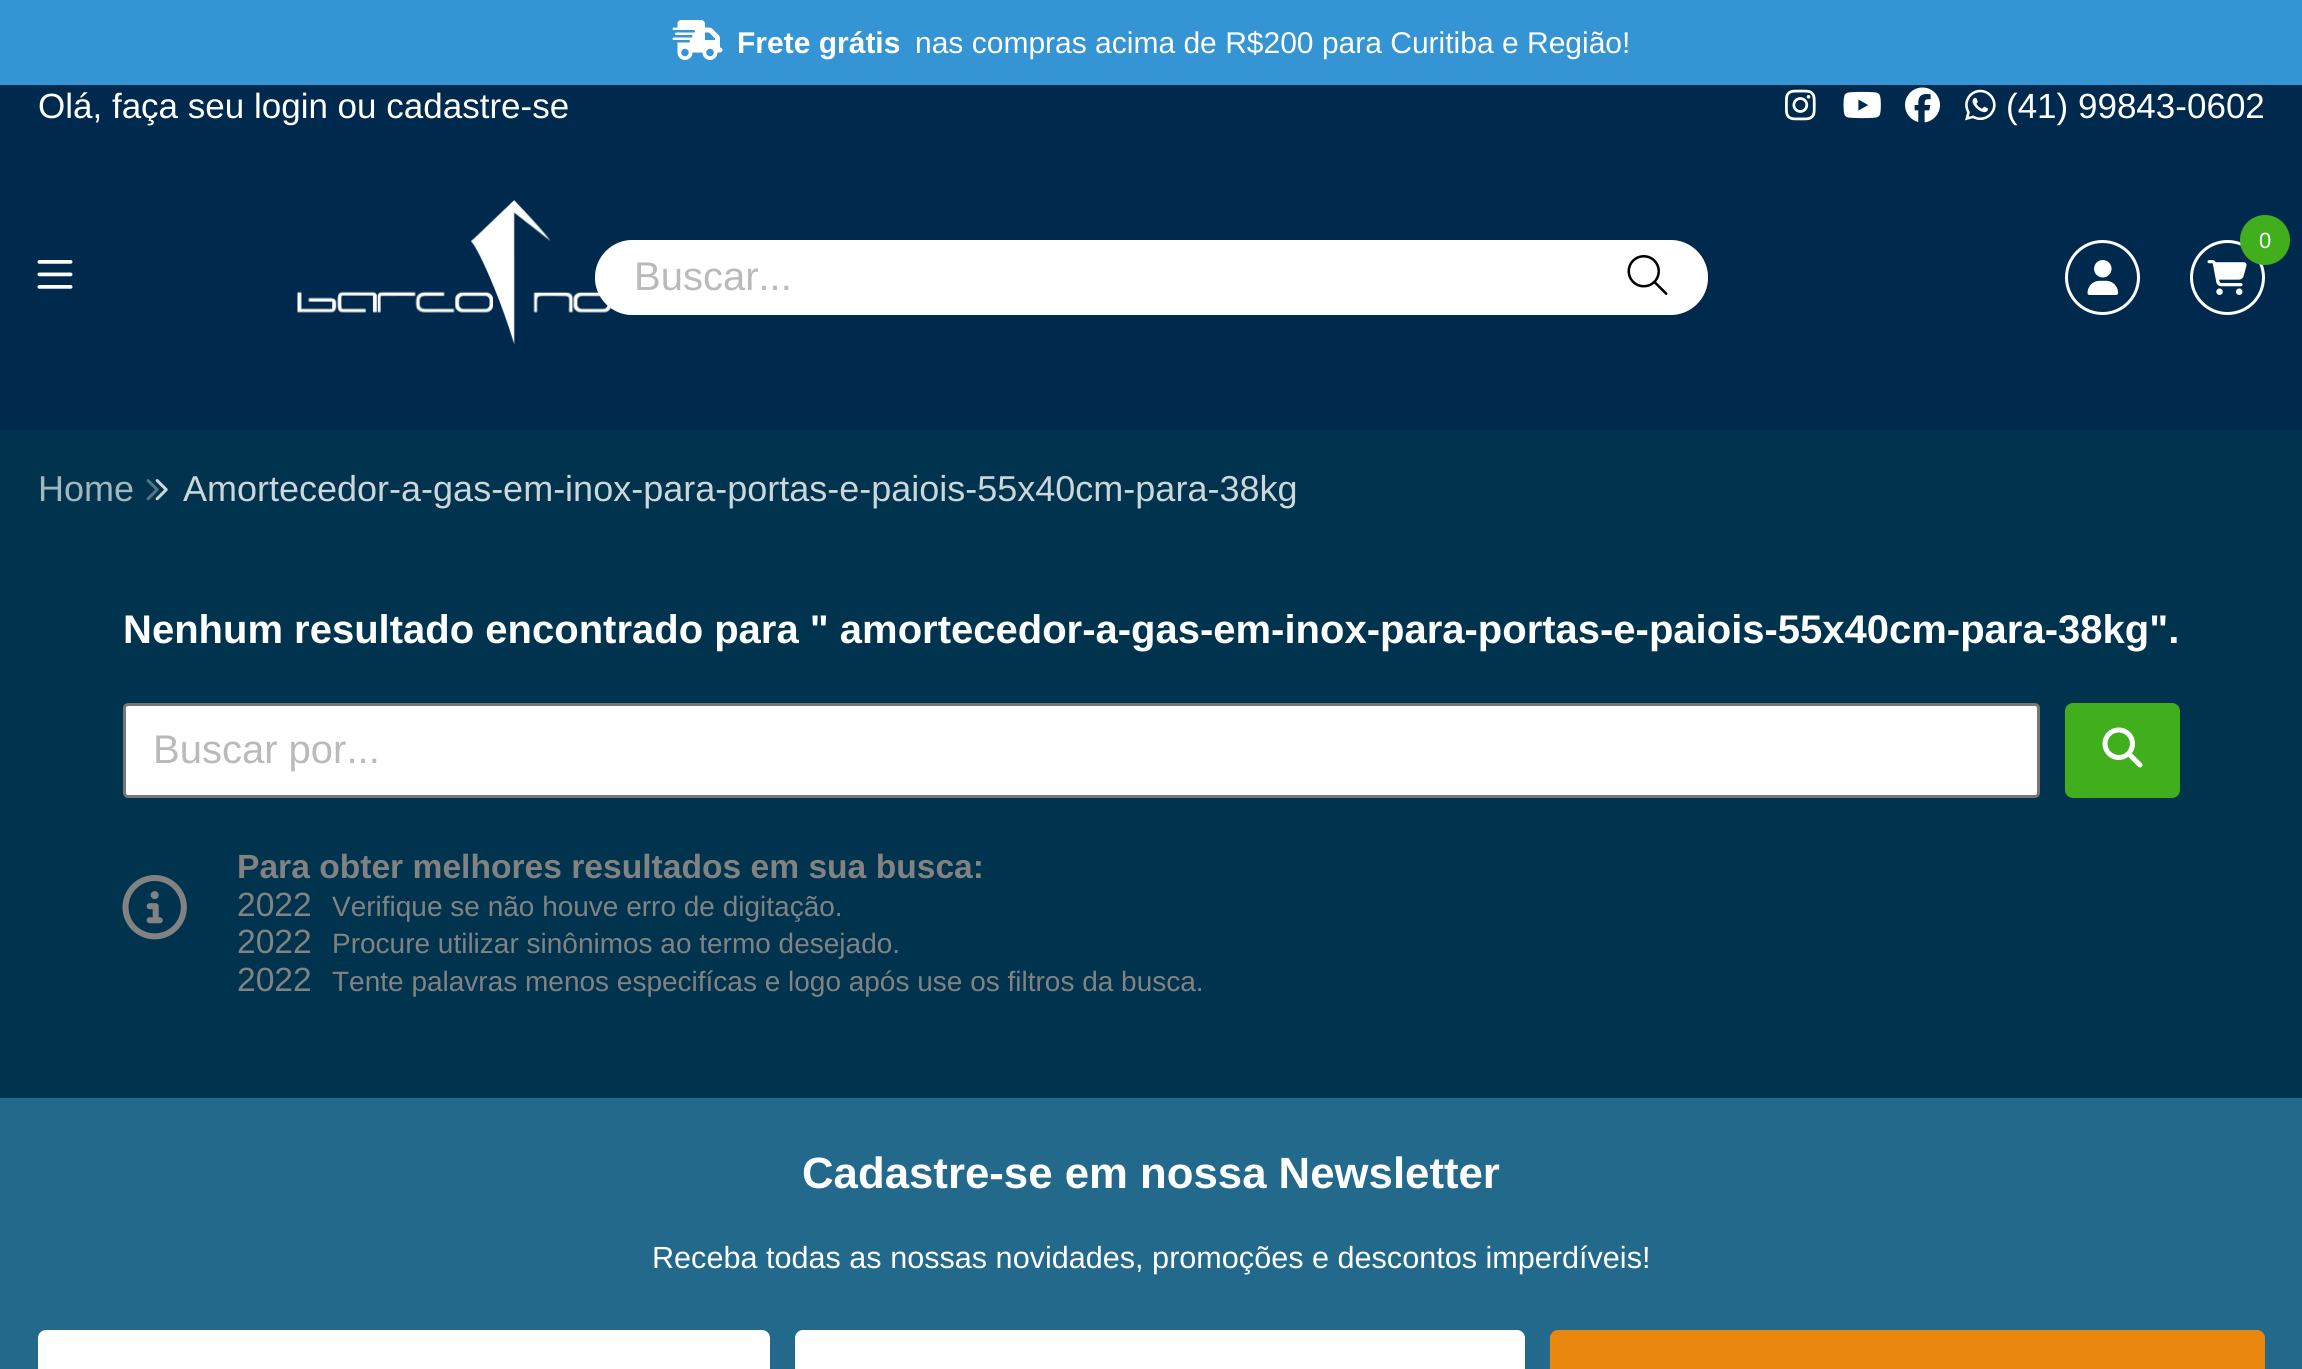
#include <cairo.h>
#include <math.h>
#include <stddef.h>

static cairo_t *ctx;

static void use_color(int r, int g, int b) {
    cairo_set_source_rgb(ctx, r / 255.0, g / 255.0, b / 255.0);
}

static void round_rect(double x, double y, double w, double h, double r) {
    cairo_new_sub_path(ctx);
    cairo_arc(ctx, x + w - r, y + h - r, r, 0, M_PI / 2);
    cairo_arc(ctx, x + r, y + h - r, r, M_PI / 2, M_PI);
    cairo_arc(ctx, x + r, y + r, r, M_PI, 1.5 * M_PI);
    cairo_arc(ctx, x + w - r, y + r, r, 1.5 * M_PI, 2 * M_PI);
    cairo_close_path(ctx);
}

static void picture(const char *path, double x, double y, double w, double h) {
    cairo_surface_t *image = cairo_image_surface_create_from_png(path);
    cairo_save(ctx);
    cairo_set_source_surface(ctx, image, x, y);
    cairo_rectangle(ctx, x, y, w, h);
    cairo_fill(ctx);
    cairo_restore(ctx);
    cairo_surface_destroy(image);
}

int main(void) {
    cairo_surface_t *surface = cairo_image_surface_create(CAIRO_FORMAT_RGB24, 2302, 1369);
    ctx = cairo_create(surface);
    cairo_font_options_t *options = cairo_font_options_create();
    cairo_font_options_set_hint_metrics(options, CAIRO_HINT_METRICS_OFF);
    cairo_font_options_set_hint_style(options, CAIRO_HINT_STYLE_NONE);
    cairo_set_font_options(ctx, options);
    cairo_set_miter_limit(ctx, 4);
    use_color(0, 51, 77);
    cairo_paint(ctx);
    use_color(52, 148, 212);
    cairo_rectangle(ctx, 0, 0, 2302, 85);
    cairo_fill(ctx);
    picture("img1.png", 672, 20, 51, 40);
    cairo_select_font_face(ctx, "Liberation Sans", CAIRO_FONT_SLANT_NORMAL, CAIRO_FONT_WEIGHT_BOLD);
    cairo_set_font_size(ctx, 30);
    use_color(255, 255, 255);
    cairo_move_to(ctx, 737, 53);
    cairo_show_text(ctx, "Frete grátis");
    cairo_select_font_face(ctx, "Liberation Sans", CAIRO_FONT_SLANT_NORMAL, CAIRO_FONT_WEIGHT_NORMAL);
    cairo_move_to(ctx, 915, 53);
    cairo_show_text(ctx, "nas compras acima de R$200 para Curitiba e Região!");
    use_color(0, 42, 77);
    cairo_rectangle(ctx, 0, 85, 2302, 345);
    cairo_fill(ctx);
    cairo_set_font_size(ctx, 35);
    use_color(255, 255, 255);
    cairo_move_to(ctx, 38, 118);
    cairo_show_text(ctx, "Olá, faça seu login ou cadastre-se");
    picture("img2.png", 1785, 89, 31, 32);
    picture("img3.png", 1843, 91, 38, 28);
    picture("img4.png", 1905, 87, 35, 36);
    picture("img5.png", 1965, 89, 31, 32);
    cairo_move_to(ctx, 2006, 118);
    cairo_show_text(ctx, "(41) 99843-0602");
    picture("img6.png", 37, 260, 36, 29);
    picture("img7.png", 297, 200, 315, 145);
    cairo_arc(ctx, 2102.5, 277.5, 36, 0, 2 * M_PI);
    cairo_set_line_width(ctx, 3);
    cairo_stroke(ctx);
    picture("img8.png", 2087, 260, 32, 35);
    cairo_arc(ctx, 2227.5, 277.5, 36, 0, 2 * M_PI);
    cairo_stroke(ctx);
    picture("img9.png", 2207, 260, 40, 35);
    use_color(65, 174, 29);
    cairo_arc(ctx, 2265, 240, 25, 0, 2 * M_PI);
    cairo_fill(ctx);
    cairo_set_font_size(ctx, 22);
    use_color(255, 255, 255);
    cairo_move_to(ctx, 2259, 248);
    cairo_show_text(ctx, "0");
    round_rect(595, 240, 1113, 75, 37.5);
    cairo_fill(ctx);
    round_rect(596.5, 241.5, 1110, 72, 36);
    cairo_set_source_rgba(ctx, 1, 1, 1, 0.4);
    cairo_stroke(ctx);
    cairo_set_font_size(ctx, 40);
    use_color(186, 186, 186);
    cairo_move_to(ctx, 634, 290);
    cairo_show_text(ctx, "Buscar...");
    picture("img10.png", 1627, 255, 41, 40);
    cairo_set_font_size(ctx, 36);
    use_color(163, 182, 191);
    cairo_move_to(ctx, 38, 501);
    cairo_show_text(ctx, "Home");
    picture("img11.png", 146, 479, 22, 22);
    use_color(204, 214, 219);
    cairo_move_to(ctx, 183, 501);
    cairo_show_text(ctx, "Amortecedor-a-gas-em-inox-para-portas-e-paiois-55x40cm-para-38kg");
    cairo_select_font_face(ctx, "Liberation Sans", CAIRO_FONT_SLANT_NORMAL, CAIRO_FONT_WEIGHT_BOLD);
    cairo_set_font_size(ctx, 40);
    use_color(255, 255, 255);
    cairo_move_to(ctx, 123, 643);
    cairo_show_text(ctx, "Nenhum resultado encontrado para \" amortecedor-a-gas-em-inox-para-portas-e-paiois-55x40cm-para-38kg\".");
    round_rect(124.5, 704.5, 1914, 92, 3.5);
    cairo_fill_preserve(ctx);
    use_color(118, 118, 118);
    cairo_stroke(ctx);
    cairo_select_font_face(ctx, "Liberation Sans", CAIRO_FONT_SLANT_NORMAL, CAIRO_FONT_WEIGHT_NORMAL);
    use_color(186, 186, 186);
    cairo_move_to(ctx, 153, 763);
    cairo_show_text(ctx, "Buscar por...");
    use_color(65, 174, 29);
    round_rect(2065, 703, 115, 95, 8);
    cairo_fill(ctx);
    picture("img12.png", 2102, 727, 41, 41);
    picture("img13.png", 122, 875, 65, 65);
    cairo_select_font_face(ctx, "Liberation Sans", CAIRO_FONT_SLANT_NORMAL, CAIRO_FONT_WEIGHT_BOLD);
    cairo_set_font_size(ctx, 33.6);
    use_color(130, 130, 130);
    cairo_move_to(ctx, 237, 878);
    cairo_show_text(ctx, "Para obter melhores resultados em sua busca:");
    cairo_select_font_face(ctx, "Liberation Sans", CAIRO_FONT_SLANT_NORMAL, CAIRO_FONT_WEIGHT_NORMAL);
    cairo_move_to(ctx, 237, 916);
    cairo_show_text(ctx, "2022");
    cairo_set_font_size(ctx, 28);
    cairo_move_to(ctx, 332, 916);
    cairo_show_text(ctx, "Verifique se não houve erro de digitação.");
    cairo_set_font_size(ctx, 33.6);
    cairo_move_to(ctx, 237, 953);
    cairo_show_text(ctx, "2022");
    cairo_set_font_size(ctx, 28);
    cairo_move_to(ctx, 332, 953);
    cairo_show_text(ctx, "Procure utilizar sinônimos ao termo desejado.");
    cairo_set_font_size(ctx, 33.6);
    cairo_move_to(ctx, 237, 991);
    cairo_show_text(ctx, "2022");
    cairo_set_font_size(ctx, 28);
    cairo_move_to(ctx, 332, 991);
    cairo_show_text(ctx, "Tente palavras menos especifícas e logo após use os filtros da busca.");
    use_color(35, 105, 140);
    cairo_rectangle(ctx, 0, 1098, 2302, 271);
    cairo_fill(ctx);
    cairo_select_font_face(ctx, "Liberation Sans", CAIRO_FONT_SLANT_NORMAL, CAIRO_FONT_WEIGHT_BOLD);
    cairo_set_font_size(ctx, 43.75);
    use_color(255, 255, 255);
    cairo_move_to(ctx, 802, 1188);
    cairo_show_text(ctx, "Cadastre-se em nossa Newsletter");
    cairo_select_font_face(ctx, "Liberation Sans", CAIRO_FONT_SLANT_NORMAL, CAIRO_FONT_WEIGHT_NORMAL);
    cairo_set_font_size(ctx, 30.6);
    cairo_move_to(ctx, 652, 1268);
    cairo_show_text(ctx, "Receba todas as nossas novidades, promoções e descontos imperdíveis!");
    round_rect(38, 1330, 732, 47, 8);
    cairo_fill(ctx);
    round_rect(795, 1330, 730, 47, 8);
    cairo_fill(ctx);
    use_color(233, 135, 14);
    round_rect(1550, 1330, 715, 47, 8);
    cairo_fill(ctx);
    cairo_surface_write_to_png(surface, "result.png");
    cairo_font_options_destroy(options);
    cairo_destroy(ctx);
    cairo_surface_destroy(surface);
    return 0;
}
